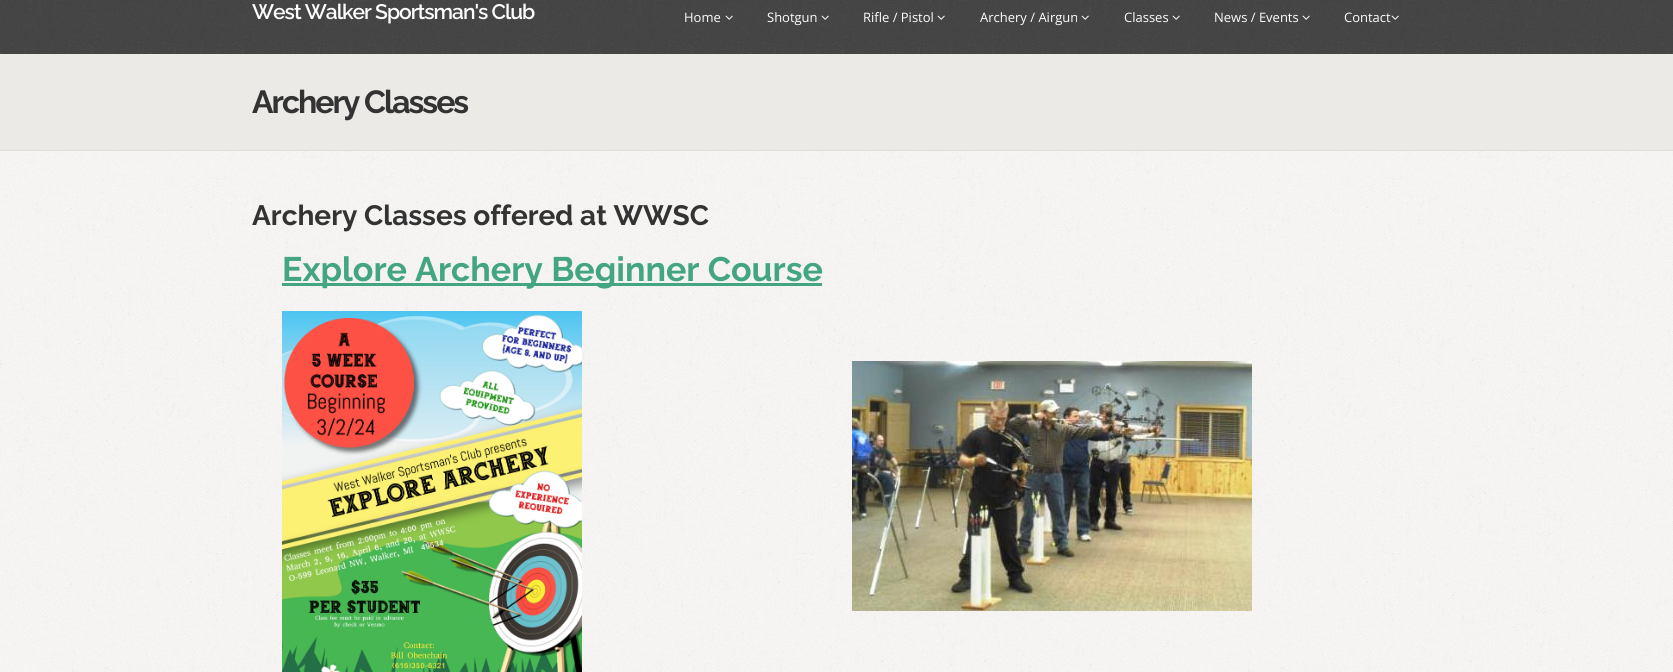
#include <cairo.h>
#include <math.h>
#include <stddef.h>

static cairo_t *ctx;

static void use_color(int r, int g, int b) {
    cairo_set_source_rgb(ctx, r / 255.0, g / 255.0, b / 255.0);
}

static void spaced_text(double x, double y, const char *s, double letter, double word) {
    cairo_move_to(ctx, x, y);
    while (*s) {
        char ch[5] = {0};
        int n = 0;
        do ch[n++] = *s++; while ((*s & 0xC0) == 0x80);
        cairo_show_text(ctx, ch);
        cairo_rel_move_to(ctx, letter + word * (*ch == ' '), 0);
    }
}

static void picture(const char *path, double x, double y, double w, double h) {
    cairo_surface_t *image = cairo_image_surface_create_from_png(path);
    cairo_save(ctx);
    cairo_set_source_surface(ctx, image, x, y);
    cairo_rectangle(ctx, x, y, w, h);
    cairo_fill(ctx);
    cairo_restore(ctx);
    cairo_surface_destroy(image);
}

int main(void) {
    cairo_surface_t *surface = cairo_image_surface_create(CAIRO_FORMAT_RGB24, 1673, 672);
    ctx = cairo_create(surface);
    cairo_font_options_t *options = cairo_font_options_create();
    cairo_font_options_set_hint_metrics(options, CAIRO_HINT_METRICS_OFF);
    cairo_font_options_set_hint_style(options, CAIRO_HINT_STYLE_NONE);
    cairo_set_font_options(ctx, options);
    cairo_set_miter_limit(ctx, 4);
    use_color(255, 255, 255);
    cairo_paint(ctx);
    picture("img1.png", 0, 0, 1673, 54);
    cairo_select_font_face(ctx, "Raleway SemiBold", CAIRO_FONT_SLANT_NORMAL, CAIRO_FONT_WEIGHT_NORMAL);
    cairo_set_font_size(ctx, 21);
    use_color(253, 253, 253);
    spaced_text(252, 19, "West Walker Sportsman's Club", -1, 0);
    cairo_select_font_face(ctx, "Open Sans", CAIRO_FONT_SLANT_NORMAL, CAIRO_FONT_WEIGHT_NORMAL);
    cairo_set_font_size(ctx, 13);
    cairo_move_to(ctx, 684, 22);
    cairo_show_text(ctx, "Home");
    picture("img2.png", 725, 15, 8, 5);
    cairo_move_to(ctx, 767, 22);
    cairo_show_text(ctx, "Shotgun");
    picture("img3.png", 821, 15, 8, 5);
    cairo_move_to(ctx, 863, 22);
    cairo_show_text(ctx, "Rifle / Pistol");
    picture("img4.png", 937, 15, 8, 5);
    cairo_move_to(ctx, 980, 22);
    cairo_show_text(ctx, "Archery / Airgun");
    picture("img5.png", 1081, 15, 8, 5);
    cairo_move_to(ctx, 1124, 22);
    cairo_show_text(ctx, "Classes");
    picture("img6.png", 1172, 15, 8, 5);
    cairo_move_to(ctx, 1214, 22);
    cairo_show_text(ctx, "News / Events");
    picture("img7.png", 1302, 15, 8, 5);
    cairo_move_to(ctx, 1344, 22);
    cairo_show_text(ctx, "Contact");
    picture("img8.png", 1391, 15, 8, 5);
    use_color(236, 234, 230);
    cairo_rectangle(ctx, 0, 54, 1673, 96);
    cairo_fill(ctx);
    cairo_select_font_face(ctx, "Raleway", CAIRO_FONT_SLANT_NORMAL, CAIRO_FONT_WEIGHT_BOLD);
    cairo_set_font_size(ctx, 32);
    use_color(51, 51, 51);
    spaced_text(252, 113, "Archery Classes", -2, 0);
    picture("img9.png", 0, 151, 1673, 521);
    use_color(221, 221, 221);
    cairo_rectangle(ctx, 0, 150, 1673, 1);
    cairo_fill(ctx);
    cairo_set_font_size(ctx, 28);
    use_color(51, 51, 51);
    cairo_move_to(ctx, 252, 225);
    cairo_show_text(ctx, "Archery Classes offered at WWSC");
    use_color(68, 165, 130);
    cairo_rectangle(ctx, 282, 283, 540, 3);
    cairo_fill(ctx);
    cairo_set_font_size(ctx, 34);
    cairo_move_to(ctx, 282, 281);
    cairo_show_text(ctx, "Explore Archery Beginner Course");
    picture("img10.png", 282, 311, 300, 361);
    picture("img11.png", 852, 361, 400, 250);
    cairo_surface_write_to_png(surface, "result.png");
    cairo_font_options_destroy(options);
    cairo_destroy(ctx);
    cairo_surface_destroy(surface);
    return 0;
}
